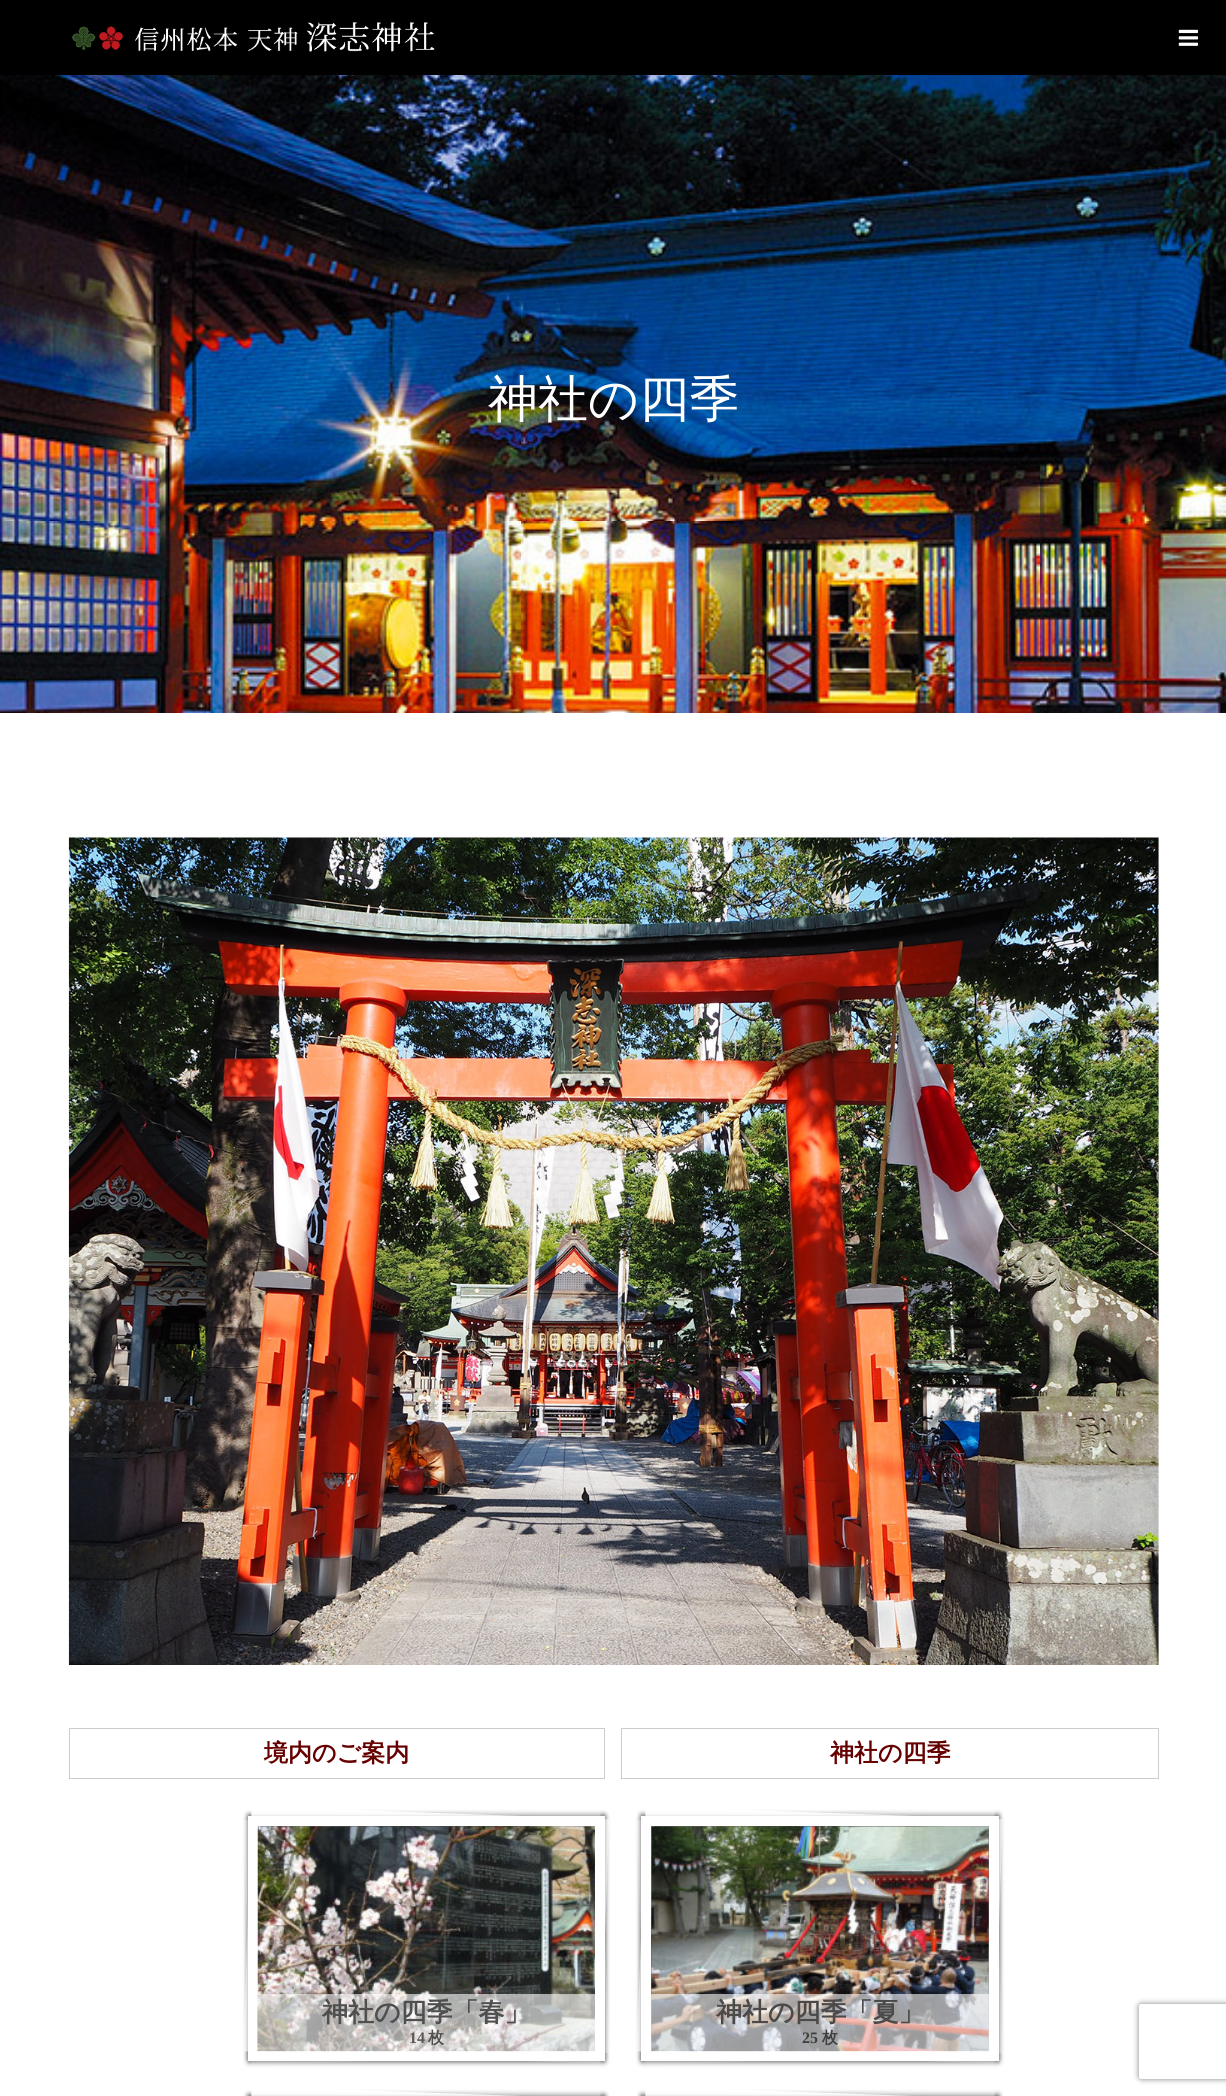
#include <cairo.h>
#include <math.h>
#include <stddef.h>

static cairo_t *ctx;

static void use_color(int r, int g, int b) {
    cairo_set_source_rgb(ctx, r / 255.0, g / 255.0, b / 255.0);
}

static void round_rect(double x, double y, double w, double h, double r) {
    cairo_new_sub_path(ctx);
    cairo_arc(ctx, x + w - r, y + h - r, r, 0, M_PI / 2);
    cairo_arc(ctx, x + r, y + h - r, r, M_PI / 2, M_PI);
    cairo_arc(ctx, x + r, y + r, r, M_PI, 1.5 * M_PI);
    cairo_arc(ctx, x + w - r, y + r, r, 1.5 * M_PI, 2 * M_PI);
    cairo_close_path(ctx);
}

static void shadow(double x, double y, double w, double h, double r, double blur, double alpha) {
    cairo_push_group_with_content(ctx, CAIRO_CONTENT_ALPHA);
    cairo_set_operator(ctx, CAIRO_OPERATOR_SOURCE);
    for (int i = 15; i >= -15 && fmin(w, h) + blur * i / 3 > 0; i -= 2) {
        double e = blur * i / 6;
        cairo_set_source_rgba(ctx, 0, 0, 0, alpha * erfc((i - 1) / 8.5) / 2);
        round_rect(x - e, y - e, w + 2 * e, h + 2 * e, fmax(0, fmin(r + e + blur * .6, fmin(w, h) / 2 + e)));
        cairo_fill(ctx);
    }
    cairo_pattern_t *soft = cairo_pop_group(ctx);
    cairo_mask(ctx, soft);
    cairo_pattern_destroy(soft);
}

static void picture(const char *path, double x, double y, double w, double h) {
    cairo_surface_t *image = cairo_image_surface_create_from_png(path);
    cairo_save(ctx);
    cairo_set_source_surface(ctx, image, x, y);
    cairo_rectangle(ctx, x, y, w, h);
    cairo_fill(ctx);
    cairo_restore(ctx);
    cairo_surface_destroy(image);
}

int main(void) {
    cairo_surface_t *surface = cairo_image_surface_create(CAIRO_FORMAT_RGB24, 1226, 2096);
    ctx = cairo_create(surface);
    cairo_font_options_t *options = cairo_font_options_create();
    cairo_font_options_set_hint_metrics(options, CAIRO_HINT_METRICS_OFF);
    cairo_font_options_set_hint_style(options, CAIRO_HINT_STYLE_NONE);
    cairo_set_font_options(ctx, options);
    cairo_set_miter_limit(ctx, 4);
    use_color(255, 255, 255);
    cairo_paint(ctx);
    use_color(0, 0, 0);
    cairo_rectangle(ctx, 0, 0, 1226, 75);
    cairo_fill(ctx);
    picture("img1.png", 72, 22, 363, 30);
    picture("img2.png", 1178, 29, 21, 17);
    picture("img3.png", 0, 75, 1226, 638);
    cairo_select_font_face(ctx, "WenQuanYi Zen Hei Medium", CAIRO_FONT_SLANT_NORMAL, CAIRO_FONT_WEIGHT_NORMAL);
    cairo_set_font_size(ctx, 50);
    use_color(255, 255, 255);
    cairo_move_to(ctx, 488, 416);
    cairo_show_text(ctx, "神社の四季");
    picture("img4.png", 68, 837, 1091, 828);
    cairo_rectangle(ctx, 69.5, 1728.5, 535, 50);
    use_color(204, 204, 204);
    cairo_set_line_width(ctx, 1);
    cairo_stroke(ctx);
    cairo_select_font_face(ctx, "WenQuanYi Zen Hei", CAIRO_FONT_SLANT_NORMAL, CAIRO_FONT_WEIGHT_BOLD);
    cairo_set_font_size(ctx, 24);
    use_color(102, 0, 0);
    cairo_move_to(ctx, 264, 1761);
    cairo_show_text(ctx, "境内のご案内");
    cairo_rectangle(ctx, 621.5, 1728.5, 537, 50);
    use_color(204, 204, 204);
    cairo_stroke(ctx);
    use_color(102, 0, 0);
    cairo_move_to(ctx, 830, 1761);
    cairo_show_text(ctx, "神社の四季");
    use_color(0, 0, 0);
    shadow(248, 1815, 357, 245, 0, 2.5, 0.3);
    cairo_new_path(ctx);
    cairo_move_to(ctx, 248.5, 1825);
    cairo_line_to(ctx, 595.5, 1813);
    cairo_line_to(ctx, 604, 2048);
    cairo_line_to(ctx, 256.5, 2060);
    cairo_close_path(ctx);
    use_color(255, 255, 255);
    cairo_set_line_width(ctx, 10);
    cairo_stroke(ctx);
    use_color(0, 0, 0);
    shadow(248, 1814, 357, 245, 0, 2.5, 0.3);
    cairo_new_path(ctx);
    cairo_move_to(ctx, 256.5, 1811.5);
    cairo_line_to(ctx, 604, 1824);
    cairo_line_to(ctx, 595.5, 2058.5);
    cairo_line_to(ctx, 248.5, 2046.5);
    cairo_close_path(ctx);
    use_color(255, 255, 255);
    cairo_stroke(ctx);
    use_color(0, 0, 0);
    shadow(248, 1818, 357, 245, 0, 2.5, 0.4);
    cairo_rectangle(ctx, 253, 1821, 347, 235);
    use_color(255, 255, 255);
    cairo_stroke(ctx);
    picture("img5.png", 257, 1826, 338, 226);
    cairo_set_source_rgba(ctx, 1, 1, 1, 0.6);
    cairo_rectangle(ctx, 258, 1994, 337, 57);
    cairo_fill(ctx);
    cairo_set_font_size(ctx, 26);
    use_color(80, 79, 79);
    cairo_move_to(ctx, 322, 2021);
    cairo_show_text(ctx, "神社の四季「春」");
    cairo_select_font_face(ctx, "Liberation Serif", CAIRO_FONT_SLANT_NORMAL, CAIRO_FONT_WEIGHT_BOLD);
    cairo_set_font_size(ctx, 16);
    use_color(89, 88, 87);
    cairo_move_to(ctx, 409, 2043);
    cairo_show_text(ctx, "14");
    cairo_select_font_face(ctx, "WenQuanYi Zen Hei", CAIRO_FONT_SLANT_NORMAL, CAIRO_FONT_WEIGHT_BOLD);
    use_color(80, 79, 79);
    cairo_move_to(ctx, 428, 2043);
    cairo_show_text(ctx, "枚");
    use_color(0, 0, 0);
    shadow(641, 1815, 358, 245, 0, 2.5, 0.3);
    cairo_new_path(ctx);
    cairo_move_to(ctx, 642, 1825);
    cairo_line_to(ctx, 989.5, 1813);
    cairo_line_to(ctx, 997.5, 2048);
    cairo_line_to(ctx, 650.5, 2060);
    cairo_close_path(ctx);
    use_color(255, 255, 255);
    cairo_stroke(ctx);
    use_color(0, 0, 0);
    shadow(641, 1814, 358, 245, 0, 2.5, 0.3);
    cairo_new_path(ctx);
    cairo_move_to(ctx, 650.5, 1811.5);
    cairo_line_to(ctx, 997.5, 1824);
    cairo_line_to(ctx, 989.5, 2058.5);
    cairo_line_to(ctx, 642, 2046.5);
    cairo_close_path(ctx);
    use_color(255, 255, 255);
    cairo_stroke(ctx);
    use_color(0, 0, 0);
    shadow(641, 1818, 358, 245, 0, 2.5, 0.4);
    cairo_rectangle(ctx, 646, 1821, 348, 235);
    use_color(255, 255, 255);
    cairo_stroke(ctx);
    picture("img6.png", 651, 1826, 338, 226);
    cairo_set_source_rgba(ctx, 1, 1, 1, 0.6);
    cairo_rectangle(ctx, 651, 1994, 338, 57);
    cairo_fill(ctx);
    cairo_set_font_size(ctx, 26);
    use_color(76, 73, 73);
    cairo_move_to(ctx, 716, 2021);
    cairo_show_text(ctx, "神社の四季「夏」");
    cairo_select_font_face(ctx, "Liberation Serif", CAIRO_FONT_SLANT_NORMAL, CAIRO_FONT_WEIGHT_BOLD);
    cairo_set_font_size(ctx, 16);
    use_color(63, 63, 64);
    cairo_move_to(ctx, 802, 2043);
    cairo_show_text(ctx, "25");
    cairo_select_font_face(ctx, "WenQuanYi Zen Hei", CAIRO_FONT_SLANT_NORMAL, CAIRO_FONT_WEIGHT_BOLD);
    cairo_move_to(ctx, 822, 2043);
    cairo_show_text(ctx, "枚");
    use_color(0, 0, 0);
    shadow(248, 2095, 357, 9, 0, 2.5, 0.3);
    cairo_new_path(ctx);
    cairo_move_to(ctx, 248.5, 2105);
    cairo_line_to(ctx, 595.5, 2093);
    cairo_line_to(ctx, 604, 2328);
    cairo_line_to(ctx, 256.5, 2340);
    cairo_close_path(ctx);
    use_color(255, 255, 255);
    cairo_stroke(ctx);
    use_color(0, 0, 0);
    shadow(248, 2094, 357, 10, 0, 2.5, 0.3);
    cairo_new_path(ctx);
    cairo_move_to(ctx, 256.5, 2091.5);
    cairo_line_to(ctx, 604, 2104);
    cairo_line_to(ctx, 595.5, 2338.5);
    cairo_line_to(ctx, 248.5, 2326.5);
    cairo_close_path(ctx);
    use_color(255, 255, 255);
    cairo_stroke(ctx);
    use_color(0, 0, 0);
    shadow(248, 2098, 357, 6, 0, 2.5, 0.4);
    shadow(641, 2095, 358, 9, 0, 2.5, 0.3);
    cairo_new_path(ctx);
    cairo_move_to(ctx, 642, 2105);
    cairo_line_to(ctx, 989.5, 2093);
    cairo_line_to(ctx, 997.5, 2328);
    cairo_line_to(ctx, 650.5, 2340);
    cairo_close_path(ctx);
    use_color(255, 255, 255);
    cairo_stroke(ctx);
    use_color(0, 0, 0);
    shadow(641, 2094, 358, 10, 0, 2.5, 0.3);
    cairo_new_path(ctx);
    cairo_move_to(ctx, 650.5, 2091.5);
    cairo_line_to(ctx, 997.5, 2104);
    cairo_line_to(ctx, 989.5, 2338.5);
    cairo_line_to(ctx, 642, 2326.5);
    cairo_close_path(ctx);
    use_color(255, 255, 255);
    cairo_stroke(ctx);
    use_color(0, 0, 0);
    shadow(641, 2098, 358, 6, 0, 2.5, 0.4);
    cairo_save(ctx);
    cairo_set_fill_rule(ctx, CAIRO_FILL_RULE_EVEN_ODD);
    cairo_new_path(ctx);
    cairo_move_to(ctx, 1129, 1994);
    cairo_line_to(ctx, 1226, 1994);
    cairo_line_to(ctx, 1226, 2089);
    cairo_line_to(ctx, 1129, 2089);
    cairo_close_path(ctx);
    cairo_move_to(ctx, 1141.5, 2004);
    cairo_line_to(ctx, 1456.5, 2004);
    cairo_curve_to(ctx, 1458, 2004, 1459, 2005, 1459, 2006.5);
    cairo_line_to(ctx, 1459, 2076.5);
    cairo_curve_to(ctx, 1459, 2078, 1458, 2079, 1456.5, 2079);
    cairo_line_to(ctx, 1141.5, 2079);
    cairo_curve_to(ctx, 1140, 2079, 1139, 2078, 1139, 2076.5);
    cairo_line_to(ctx, 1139, 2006.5);
    cairo_curve_to(ctx, 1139, 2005, 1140, 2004, 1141.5, 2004);
    cairo_close_path(ctx);
    cairo_clip(ctx);
    use_color(128, 128, 128);
    shadow(1139, 2004, 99, 75, 2.5, 3, 1);
    cairo_restore(ctx);
    cairo_surface_write_to_png(surface, "result.png");
    cairo_font_options_destroy(options);
    cairo_destroy(ctx);
    cairo_surface_destroy(surface);
    return 0;
}
